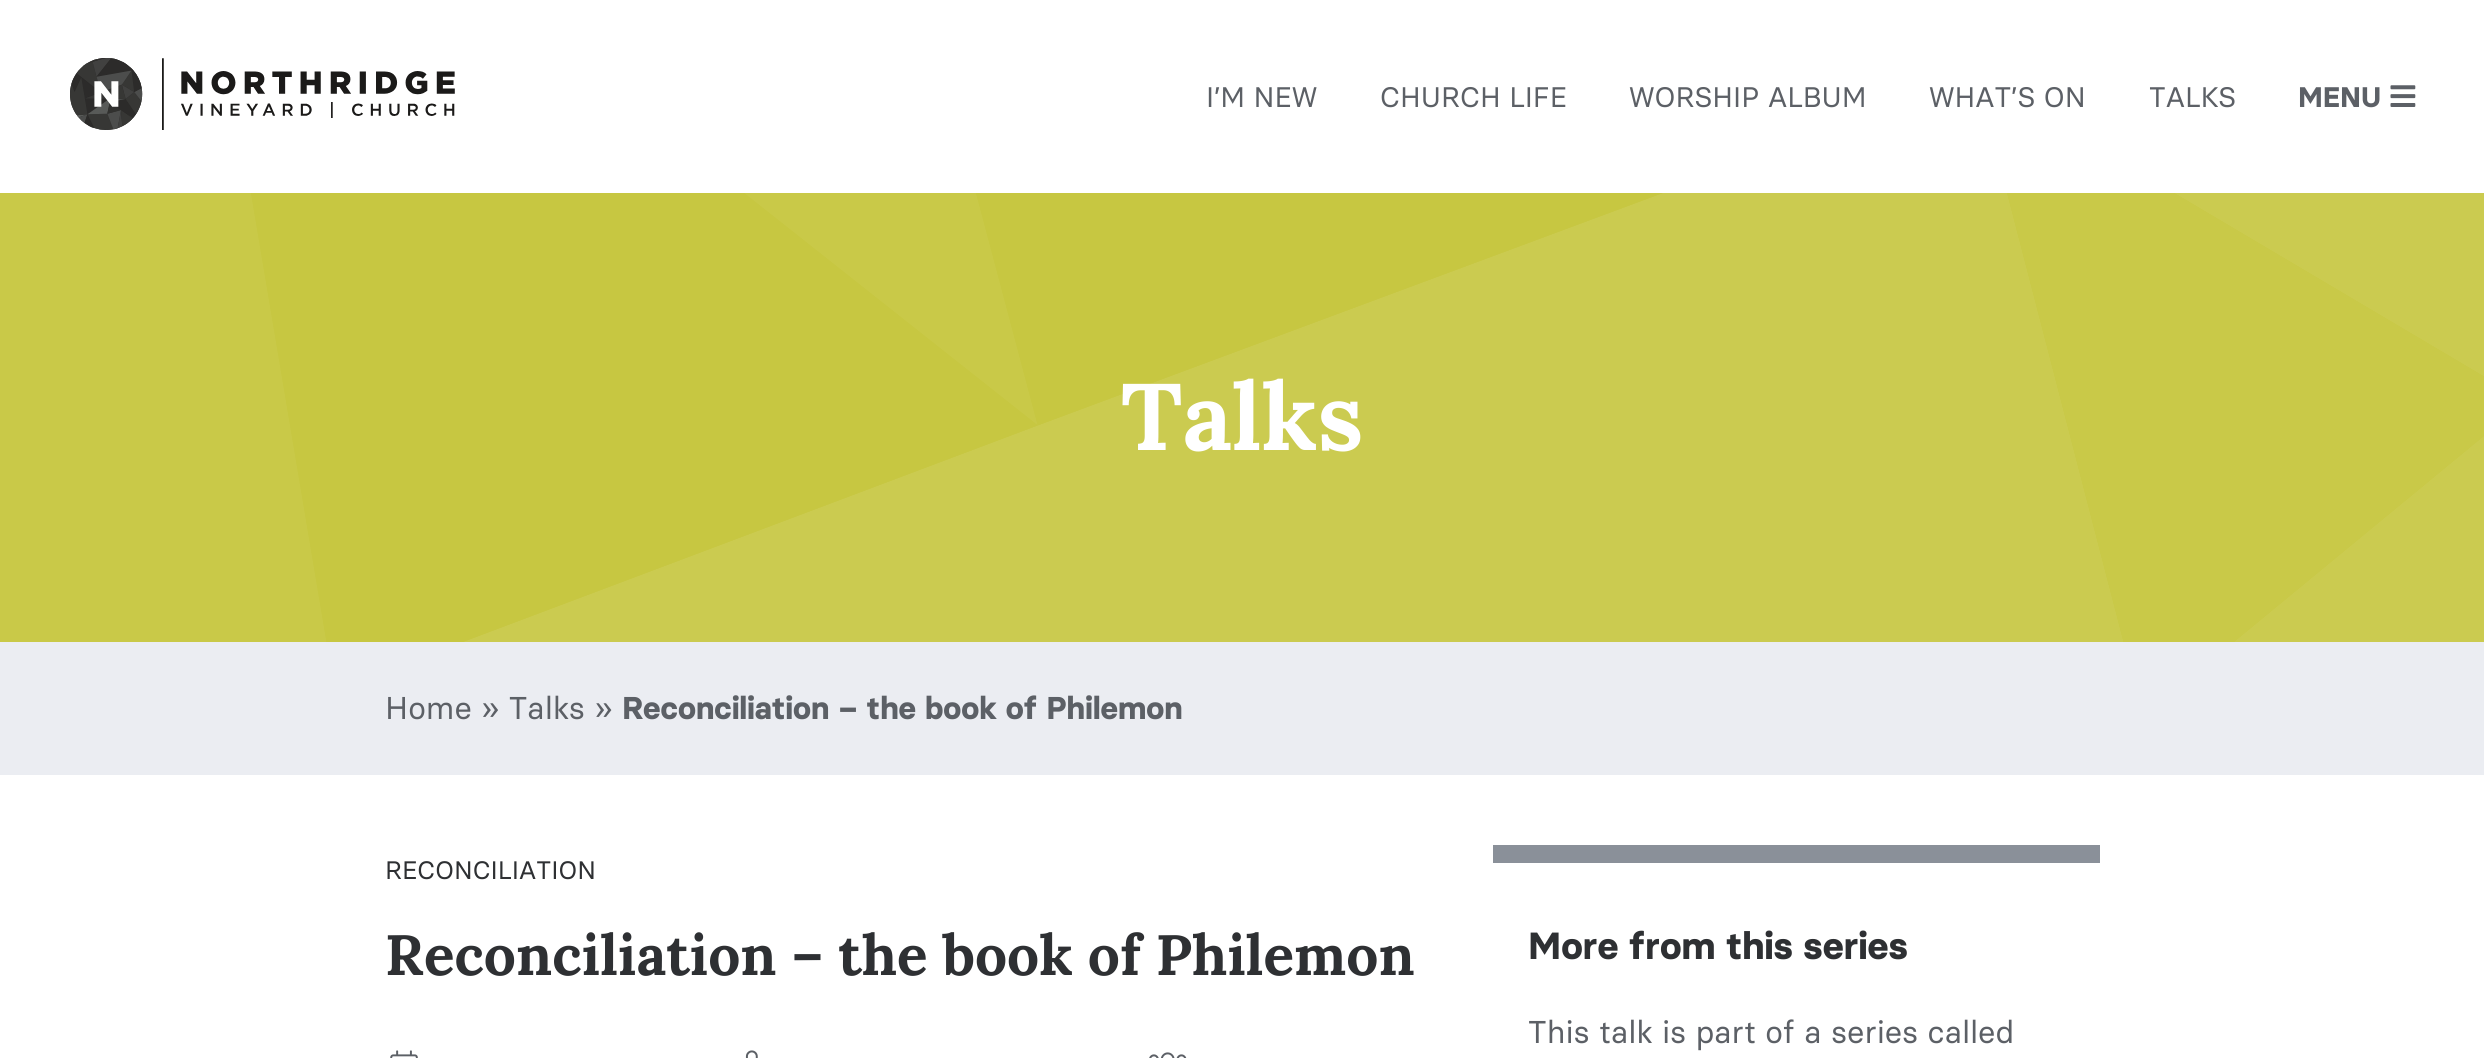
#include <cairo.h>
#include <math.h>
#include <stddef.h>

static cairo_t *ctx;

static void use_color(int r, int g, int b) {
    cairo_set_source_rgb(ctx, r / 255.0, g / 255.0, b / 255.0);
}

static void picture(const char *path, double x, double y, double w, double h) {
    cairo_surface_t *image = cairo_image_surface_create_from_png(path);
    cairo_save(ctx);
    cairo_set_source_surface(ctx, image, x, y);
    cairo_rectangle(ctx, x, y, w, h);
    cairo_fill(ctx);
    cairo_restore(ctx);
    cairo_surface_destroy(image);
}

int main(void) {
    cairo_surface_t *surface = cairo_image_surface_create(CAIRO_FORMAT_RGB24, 2484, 1058);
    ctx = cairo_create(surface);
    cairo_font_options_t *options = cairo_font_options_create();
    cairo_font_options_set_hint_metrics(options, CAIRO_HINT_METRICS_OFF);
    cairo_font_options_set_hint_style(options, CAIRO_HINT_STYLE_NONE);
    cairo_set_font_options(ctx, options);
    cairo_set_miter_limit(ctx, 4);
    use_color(255, 255, 255);
    cairo_paint(ctx);
    picture("img1.png", 70, 58, 385, 72);
    cairo_select_font_face(ctx, "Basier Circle", CAIRO_FONT_SLANT_NORMAL, CAIRO_FONT_WEIGHT_NORMAL);
    cairo_set_font_size(ctx, 28.25);
    use_color(92, 96, 102);
    cairo_move_to(ctx, 1206, 107);
    cairo_show_text(ctx, "I’M NEW");
    cairo_move_to(ctx, 1380, 107);
    cairo_show_text(ctx, "CHURCH LIFE");
    cairo_move_to(ctx, 1629, 107);
    cairo_show_text(ctx, "WORSHIP ALBUM");
    cairo_move_to(ctx, 1929, 107);
    cairo_show_text(ctx, "WHAT’S ON");
    cairo_move_to(ctx, 2149, 107);
    cairo_show_text(ctx, "TALKS");
    cairo_select_font_face(ctx, "Basier Circle", CAIRO_FONT_SLANT_NORMAL, CAIRO_FONT_WEIGHT_BOLD);
    cairo_move_to(ctx, 2298, 107);
    cairo_show_text(ctx, "MENU");
    picture("img2.png", 2390, 85, 26, 22);
    picture("img3.png", 0, 193, 2484, 449);
    cairo_select_font_face(ctx, "Lora", CAIRO_FONT_SLANT_NORMAL, CAIRO_FONT_WEIGHT_BOLD);
    cairo_set_font_size(ctx, 94.5);
    use_color(255, 255, 255);
    cairo_move_to(ctx, 1121, 450);
    cairo_show_text(ctx, "Talks");
    use_color(235, 237, 242);
    cairo_rectangle(ctx, 0, 642, 2484, 133);
    cairo_fill(ctx);
    cairo_select_font_face(ctx, "Basier Circle", CAIRO_FONT_SLANT_NORMAL, CAIRO_FONT_WEIGHT_NORMAL);
    cairo_set_font_size(ctx, 31.5);
    use_color(92, 96, 102);
    cairo_move_to(ctx, 385, 719);
    cairo_show_text(ctx, "Home » Talks »");
    cairo_select_font_face(ctx, "Basier Circle", CAIRO_FONT_SLANT_NORMAL, CAIRO_FONT_WEIGHT_BOLD);
    cairo_move_to(ctx, 622, 719);
    cairo_show_text(ctx, "Reconciliation – the book of Philemon");
    cairo_select_font_face(ctx, "Basier Circle", CAIRO_FONT_SLANT_NORMAL, CAIRO_FONT_WEIGHT_NORMAL);
    cairo_set_font_size(ctx, 25.25);
    use_color(46, 48, 51);
    cairo_move_to(ctx, 385, 879);
    cairo_show_text(ctx, "RECONCILIATION");
    cairo_select_font_face(ctx, "Lora", CAIRO_FONT_SLANT_NORMAL, CAIRO_FONT_WEIGHT_BOLD);
    cairo_set_font_size(ctx, 56.75);
    cairo_move_to(ctx, 385, 975);
    cairo_show_text(ctx, "Reconciliation – the book of Philemon");
    picture("img4.png", 390, 1050, 28, 8);
    picture("img5.png", 745, 1050, 13, 8);
    picture("img6.png", 1149, 1052, 38, 6);
    use_color(138, 144, 153);
    cairo_rectangle(ctx, 1493, 845, 607, 18);
    cairo_fill(ctx);
    cairo_select_font_face(ctx, "Basier Circle", CAIRO_FONT_SLANT_NORMAL, CAIRO_FONT_WEIGHT_BOLD);
    cairo_set_font_size(ctx, 37.75);
    use_color(46, 48, 51);
    cairo_move_to(ctx, 1528, 959);
    cairo_show_text(ctx, "More from this series");
    cairo_select_font_face(ctx, "Basier Circle", CAIRO_FONT_SLANT_NORMAL, CAIRO_FONT_WEIGHT_NORMAL);
    cairo_set_font_size(ctx, 31.5);
    use_color(92, 96, 102);
    cairo_move_to(ctx, 1528, 1043);
    cairo_show_text(ctx, "This talk is part of a series called");
    cairo_surface_write_to_png(surface, "result.png");
    cairo_font_options_destroy(options);
    cairo_destroy(ctx);
    cairo_surface_destroy(surface);
    return 0;
}
